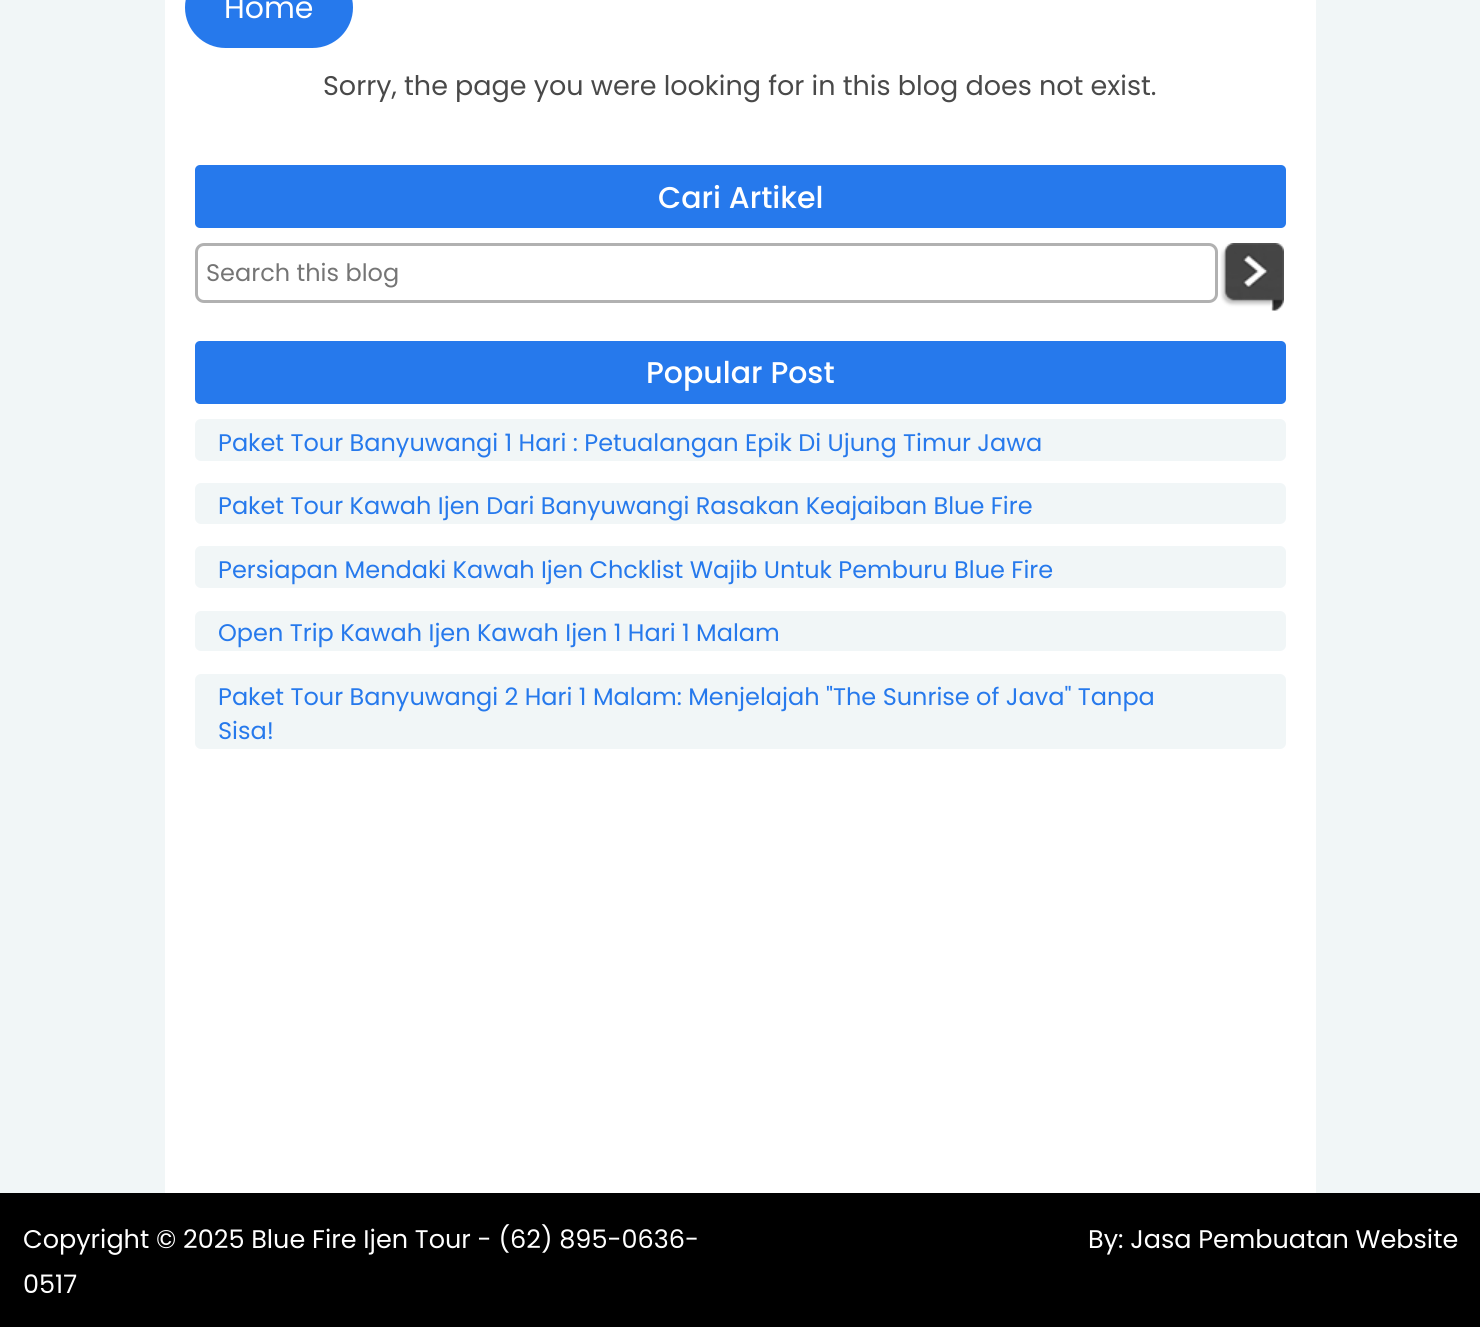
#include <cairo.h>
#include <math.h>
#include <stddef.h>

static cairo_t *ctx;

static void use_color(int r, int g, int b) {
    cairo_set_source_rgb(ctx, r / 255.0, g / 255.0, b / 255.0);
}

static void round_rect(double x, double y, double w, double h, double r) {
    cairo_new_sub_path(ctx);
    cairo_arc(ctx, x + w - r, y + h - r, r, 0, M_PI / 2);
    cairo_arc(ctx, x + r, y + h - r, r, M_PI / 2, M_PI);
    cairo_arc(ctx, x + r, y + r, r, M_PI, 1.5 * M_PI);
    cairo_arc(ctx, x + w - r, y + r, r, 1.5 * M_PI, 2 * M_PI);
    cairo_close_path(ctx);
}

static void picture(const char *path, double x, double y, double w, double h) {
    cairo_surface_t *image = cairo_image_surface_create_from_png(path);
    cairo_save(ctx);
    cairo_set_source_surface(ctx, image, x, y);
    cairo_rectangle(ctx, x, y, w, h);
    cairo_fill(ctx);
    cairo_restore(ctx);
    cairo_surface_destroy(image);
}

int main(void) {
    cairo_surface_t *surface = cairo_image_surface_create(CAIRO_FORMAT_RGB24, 1480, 1327);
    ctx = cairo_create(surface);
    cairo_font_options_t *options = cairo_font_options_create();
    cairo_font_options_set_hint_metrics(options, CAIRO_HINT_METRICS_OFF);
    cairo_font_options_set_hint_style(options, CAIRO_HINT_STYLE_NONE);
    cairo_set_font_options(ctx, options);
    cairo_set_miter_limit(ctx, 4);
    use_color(241, 246, 247);
    cairo_paint(ctx);
    use_color(255, 255, 255);
    cairo_rectangle(ctx, 165, 0, 1151, 1193);
    cairo_fill(ctx);
    use_color(38, 121, 236);
    round_rect(186.5, -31.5, 165, 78, 39);
    cairo_fill_preserve(ctx);
    cairo_set_line_width(ctx, 3);
    cairo_stroke(ctx);
    cairo_select_font_face(ctx, "Poppins", CAIRO_FONT_SLANT_NORMAL, CAIRO_FONT_WEIGHT_NORMAL);
    cairo_set_font_size(ctx, 30);
    use_color(255, 255, 255);
    cairo_move_to(ctx, 224, 18);
    cairo_show_text(ctx, "Home");
    cairo_set_font_size(ctx, 27);
    use_color(73, 73, 73);
    cairo_move_to(ctx, 323, 95);
    cairo_show_text(ctx, "Sorry, the page you were looking for in this blog does not exist.");
    use_color(38, 121, 236);
    round_rect(195, 165, 1091, 63, 5);
    cairo_fill(ctx);
    cairo_select_font_face(ctx, "Poppins Medium", CAIRO_FONT_SLANT_NORMAL, CAIRO_FONT_WEIGHT_NORMAL);
    cairo_set_font_size(ctx, 30);
    use_color(255, 255, 255);
    cairo_move_to(ctx, 658, 208);
    cairo_show_text(ctx, "Cari Artikel");
    round_rect(196.5, 244.5, 1020, 57, 7.5);
    use_color(177, 177, 177);
    cairo_stroke(ctx);
    cairo_select_font_face(ctx, "Poppins", CAIRO_FONT_SLANT_NORMAL, CAIRO_FONT_WEIGHT_NORMAL);
    cairo_set_font_size(ctx, 24);
    use_color(117, 117, 117);
    cairo_move_to(ctx, 206, 281);
    cairo_show_text(ctx, "Search this blog");
    picture("img1.png", 1220, 243, 64, 68);
    use_color(38, 121, 236);
    round_rect(195, 341, 1091, 63, 5);
    cairo_fill(ctx);
    cairo_select_font_face(ctx, "Poppins Medium", CAIRO_FONT_SLANT_NORMAL, CAIRO_FONT_WEIGHT_NORMAL);
    cairo_set_font_size(ctx, 30);
    use_color(255, 255, 255);
    cairo_move_to(ctx, 646, 383);
    cairo_show_text(ctx, "Popular Post");
    use_color(241, 246, 247);
    round_rect(195, 419, 1091, 42, 6);
    cairo_fill(ctx);
    cairo_select_font_face(ctx, "Poppins", CAIRO_FONT_SLANT_NORMAL, CAIRO_FONT_WEIGHT_NORMAL);
    cairo_set_font_size(ctx, 24);
    use_color(38, 121, 236);
    cairo_move_to(ctx, 218, 451);
    cairo_show_text(ctx, "Paket Tour Banyuwangi 1 Hari : Petualangan Epik Di Ujung Timur Jawa");
    use_color(241, 246, 247);
    round_rect(195, 483, 1091, 41, 6);
    cairo_fill(ctx);
    use_color(38, 121, 236);
    cairo_move_to(ctx, 218, 514);
    cairo_show_text(ctx, "Paket Tour Kawah Ijen Dari Banyuwangi Rasakan Keajaiban Blue Fire");
    use_color(241, 246, 247);
    round_rect(195, 546, 1091, 42, 6);
    cairo_fill(ctx);
    use_color(38, 121, 236);
    cairo_move_to(ctx, 218, 578);
    cairo_show_text(ctx, "Persiapan Mendaki Kawah Ijen Chcklist Wajib Untuk Pemburu Blue Fire");
    use_color(241, 246, 247);
    round_rect(195, 611, 1091, 40, 6);
    cairo_fill(ctx);
    use_color(38, 121, 236);
    cairo_move_to(ctx, 218, 641);
    cairo_show_text(ctx, "Open Trip Kawah Ijen Kawah Ijen 1 Hari 1 Malam");
    use_color(241, 246, 247);
    round_rect(195, 674, 1091, 75, 6);
    cairo_fill(ctx);
    use_color(38, 121, 236);
    cairo_move_to(ctx, 218, 705);
    cairo_show_text(ctx, "Paket Tour Banyuwangi 2 Hari 1 Malam: Menjelajah \"The Sunrise of Java\" Tanpa");
    cairo_move_to(ctx, 218, 739);
    cairo_show_text(ctx, "Sisa!");
    use_color(0, 0, 0);
    cairo_rectangle(ctx, 0, 1193, 1480, 134);
    cairo_fill(ctx);
    cairo_set_font_size(ctx, 25.5);
    use_color(255, 255, 255);
    cairo_move_to(ctx, 23, 1248);
    cairo_show_text(ctx, "Copyright © 2025 Blue Fire Ijen Tour - (62) 895-0636-");
    cairo_move_to(ctx, 23, 1293);
    cairo_show_text(ctx, "0517");
    cairo_move_to(ctx, 1088, 1248);
    cairo_show_text(ctx, "By: Jasa Pembuatan Website");
    cairo_surface_write_to_png(surface, "result.png");
    cairo_font_options_destroy(options);
    cairo_destroy(ctx);
    cairo_surface_destroy(surface);
    return 0;
}
